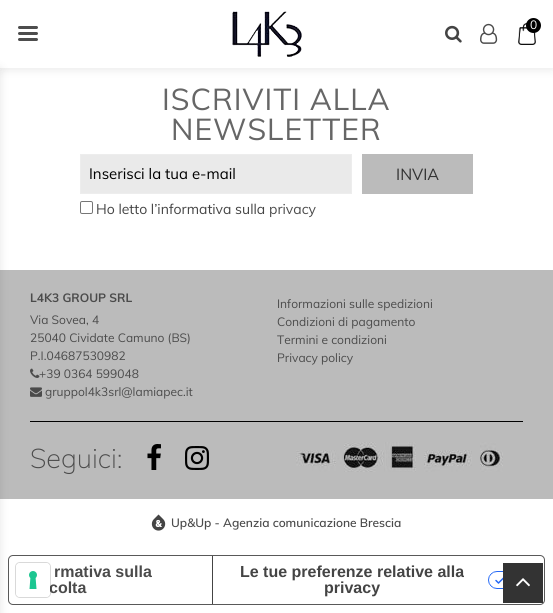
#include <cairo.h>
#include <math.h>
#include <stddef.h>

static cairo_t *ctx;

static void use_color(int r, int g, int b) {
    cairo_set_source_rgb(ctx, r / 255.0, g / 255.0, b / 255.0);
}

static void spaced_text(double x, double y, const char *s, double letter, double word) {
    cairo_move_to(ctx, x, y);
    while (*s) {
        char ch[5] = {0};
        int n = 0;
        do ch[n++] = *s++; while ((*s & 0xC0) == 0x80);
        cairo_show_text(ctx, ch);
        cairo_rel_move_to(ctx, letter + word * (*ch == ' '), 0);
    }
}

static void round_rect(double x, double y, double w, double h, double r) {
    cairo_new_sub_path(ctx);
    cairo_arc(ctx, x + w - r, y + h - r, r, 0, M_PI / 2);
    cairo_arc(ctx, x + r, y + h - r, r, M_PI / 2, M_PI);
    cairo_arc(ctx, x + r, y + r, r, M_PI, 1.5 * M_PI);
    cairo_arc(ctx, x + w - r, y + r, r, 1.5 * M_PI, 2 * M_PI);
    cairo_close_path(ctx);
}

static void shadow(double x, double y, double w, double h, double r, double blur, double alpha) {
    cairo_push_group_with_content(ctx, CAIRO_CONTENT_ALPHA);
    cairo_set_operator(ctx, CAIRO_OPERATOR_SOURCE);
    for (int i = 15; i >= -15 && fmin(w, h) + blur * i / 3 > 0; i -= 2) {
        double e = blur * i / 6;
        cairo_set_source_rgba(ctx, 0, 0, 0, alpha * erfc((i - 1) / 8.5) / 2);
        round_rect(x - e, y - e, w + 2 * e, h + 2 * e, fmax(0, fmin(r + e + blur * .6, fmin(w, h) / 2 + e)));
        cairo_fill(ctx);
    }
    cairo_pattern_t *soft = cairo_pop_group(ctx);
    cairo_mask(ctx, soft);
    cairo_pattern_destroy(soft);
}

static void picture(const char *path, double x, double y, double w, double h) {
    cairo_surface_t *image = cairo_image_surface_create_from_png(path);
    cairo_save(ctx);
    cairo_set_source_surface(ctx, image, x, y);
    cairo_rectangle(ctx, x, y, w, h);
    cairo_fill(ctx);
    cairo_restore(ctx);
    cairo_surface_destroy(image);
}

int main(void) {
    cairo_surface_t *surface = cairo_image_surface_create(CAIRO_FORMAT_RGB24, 553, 613);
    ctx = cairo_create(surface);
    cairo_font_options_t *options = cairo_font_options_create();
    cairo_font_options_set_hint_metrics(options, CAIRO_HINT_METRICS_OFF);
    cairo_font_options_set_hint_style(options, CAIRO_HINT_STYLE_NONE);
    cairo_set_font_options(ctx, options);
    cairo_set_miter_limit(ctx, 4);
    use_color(255, 255, 255);
    cairo_paint(ctx);
    use_color(0, 0, 0);
    shadow(0, 1, 553, 68, 0, 5, 0.1);
    use_color(255, 255, 255);
    cairo_rectangle(ctx, 0, 0, 553, 68);
    cairo_fill(ctx);
    use_color(77, 77, 77);
    round_rect(18, 26, 20, 3, 1.5);
    cairo_fill(ctx);
    round_rect(18, 32, 20, 3, 1.5);
    cairo_fill(ctx);
    round_rect(18, 38, 20, 3, 1.5);
    cairo_fill(ctx);
    picture("img1.png", 232, 11, 70, 46);
    picture("img2.png", 445, 25, 17, 18);
    picture("img3.png", 480, 23, 18, 21);
    picture("img4.png", 518, 23, 18, 22);
    use_color(0, 0, 0);
    cairo_arc(ctx, 533.5, 25.5, 7.5, 0, 2 * M_PI);
    cairo_fill(ctx);
    cairo_select_font_face(ctx, "Muli", CAIRO_FONT_SLANT_NORMAL, CAIRO_FONT_WEIGHT_NORMAL);
    cairo_set_font_size(ctx, 12);
    use_color(255, 255, 255);
    cairo_move_to(ctx, 530, 29);
    cairo_show_text(ctx, "0");
    use_color(187, 187, 187);
    cairo_rectangle(ctx, 0, 270, 553, 229);
    cairo_fill(ctx);
    round_rect(8.5, 555.5, 536, 49, 4.5);
    use_color(89, 89, 89);
    cairo_set_line_width(ctx, 1);
    cairo_stroke(ctx);
    use_color(0, 0, 0);
    shadow(-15, 69, 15, 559, 0, 5, 0.1);
    cairo_set_font_size(ctx, 30);
    use_color(102, 102, 102);
    spaced_text(162, 110, "ISCRIVITI ALLA", 1, 0);
    spaced_text(171, 140, "NEWSLETTER", 1, 0);
    use_color(234, 234, 234);
    cairo_rectangle(ctx, 80.5, 154.5, 271, 39);
    cairo_fill_preserve(ctx);
    use_color(237, 237, 237);
    cairo_stroke(ctx);
    cairo_set_font_size(ctx, 15);
    use_color(0, 0, 0);
    cairo_move_to(ctx, 89, 179);
    cairo_show_text(ctx, "Inserisci la tua e-mail");
    use_color(187, 187, 187);
    cairo_rectangle(ctx, 362, 154, 111, 40);
    cairo_fill(ctx);
    cairo_set_font_size(ctx, 16);
    use_color(51, 51, 51);
    cairo_move_to(ctx, 396, 180);
    cairo_show_text(ctx, "INVIA");
    round_rect(80.5, 201.5, 12, 12, 1.5);
    use_color(118, 118, 118);
    cairo_stroke(ctx);
    cairo_set_font_size(ctx, 14);
    use_color(68, 68, 68);
    cairo_move_to(ctx, 96, 214);
    cairo_show_text(ctx, "Ho letto l’informativa sulla");
    use_color(75, 75, 75);
    cairo_move_to(ctx, 269, 214);
    cairo_show_text(ctx, "privacy");
    cairo_select_font_face(ctx, "Muli", CAIRO_FONT_SLANT_NORMAL, CAIRO_FONT_WEIGHT_BOLD);
    cairo_set_font_size(ctx, 12);
    cairo_move_to(ctx, 30, 302);
    cairo_show_text(ctx, "L4K3 GROUP SRL");
    cairo_select_font_face(ctx, "Muli", CAIRO_FONT_SLANT_NORMAL, CAIRO_FONT_WEIGHT_NORMAL);
    cairo_move_to(ctx, 30, 324);
    cairo_show_text(ctx, "Via Sovea, 4");
    cairo_move_to(ctx, 30, 342);
    cairo_show_text(ctx, "25040 Cividate Camuno (BS)");
    cairo_move_to(ctx, 30, 360);
    cairo_show_text(ctx, "P.I.04687530982");
    picture("img5.png", 30, 368, 10, 10);
    cairo_move_to(ctx, 39, 378);
    cairo_show_text(ctx, "+39 0364 599048");
    picture("img6.png", 30, 387, 12, 10);
    cairo_move_to(ctx, 45, 396);
    cairo_show_text(ctx, "gruppol4k3srl@lamiapec.it");
    cairo_move_to(ctx, 277, 308);
    cairo_show_text(ctx, "Informazioni sulle spedizioni");
    cairo_move_to(ctx, 277, 326);
    cairo_show_text(ctx, "Condizioni di pagamento");
    cairo_move_to(ctx, 277, 344);
    cairo_show_text(ctx, "Termini e condizioni");
    cairo_move_to(ctx, 277, 362);
    cairo_show_text(ctx, "Privacy policy");
    use_color(0, 0, 0);
    cairo_rectangle(ctx, 30, 421, 493, 1);
    cairo_fill(ctx);
    cairo_select_font_face(ctx, "Muli ExtraLight", CAIRO_FONT_SLANT_NORMAL, CAIRO_FONT_WEIGHT_NORMAL);
    cairo_set_font_size(ctx, 27);
    use_color(75, 75, 75);
    cairo_move_to(ctx, 30, 468);
    cairo_show_text(ctx, "Seguici:");
    picture("img7.png", 147, 444, 14, 26);
    picture("img8.png", 185, 446, 24, 24);
    picture("img9.png", 296, 442, 207, 30);
    picture("img10.png", 151, 514, 15, 17);
    cairo_select_font_face(ctx, "Muli SemiBold", CAIRO_FONT_SLANT_NORMAL, CAIRO_FONT_WEIGHT_NORMAL);
    cairo_set_font_size(ctx, 12);
    cairo_move_to(ctx, 171, 527);
    cairo_show_text(ctx, "Up&Up - Agenzia comunicazione Brescia");
    use_color(51, 51, 51);
    cairo_rectangle(ctx, 503, 563, 40, 40);
    cairo_fill(ctx);
    picture("img11.png", 516, 578, 14, 9);
    cairo_select_font_face(ctx, "Liberation Sans", CAIRO_FONT_SLANT_NORMAL, CAIRO_FONT_WEIGHT_BOLD);
    cairo_set_font_size(ctx, 16);
    use_color(75, 75, 75);
    cairo_move_to(ctx, 49, 593);
    cairo_show_text(ctx, "colta");
    round_rect(15.5, 562.5, 35, 35, 4.5);
    cairo_set_source_rgba(ctx, 0, 0, 0, 0.15);
    cairo_stroke(ctx);
    use_color(255, 255, 255);
    round_rect(16, 563, 34, 34, 4);
    cairo_fill(ctx);
    picture("img12.png", 29, 571, 8, 18);
    use_color(75, 75, 75);
    cairo_move_to(ctx, 54, 577);
    cairo_show_text(ctx, "rmativa sulla");
    use_color(68, 68, 68);
    cairo_rectangle(ctx, 212, 556, 1, 48);
    cairo_fill(ctx);
    cairo_move_to(ctx, 240, 577);
    cairo_show_text(ctx, "Le tue preferenze relative alla");
    picture("img13.png", 488, 571, 15, 18);
    cairo_move_to(ctx, 324, 593);
    cairo_show_text(ctx, "privacy");
    cairo_surface_write_to_png(surface, "result.png");
    cairo_font_options_destroy(options);
    cairo_destroy(ctx);
    cairo_surface_destroy(surface);
    return 0;
}
